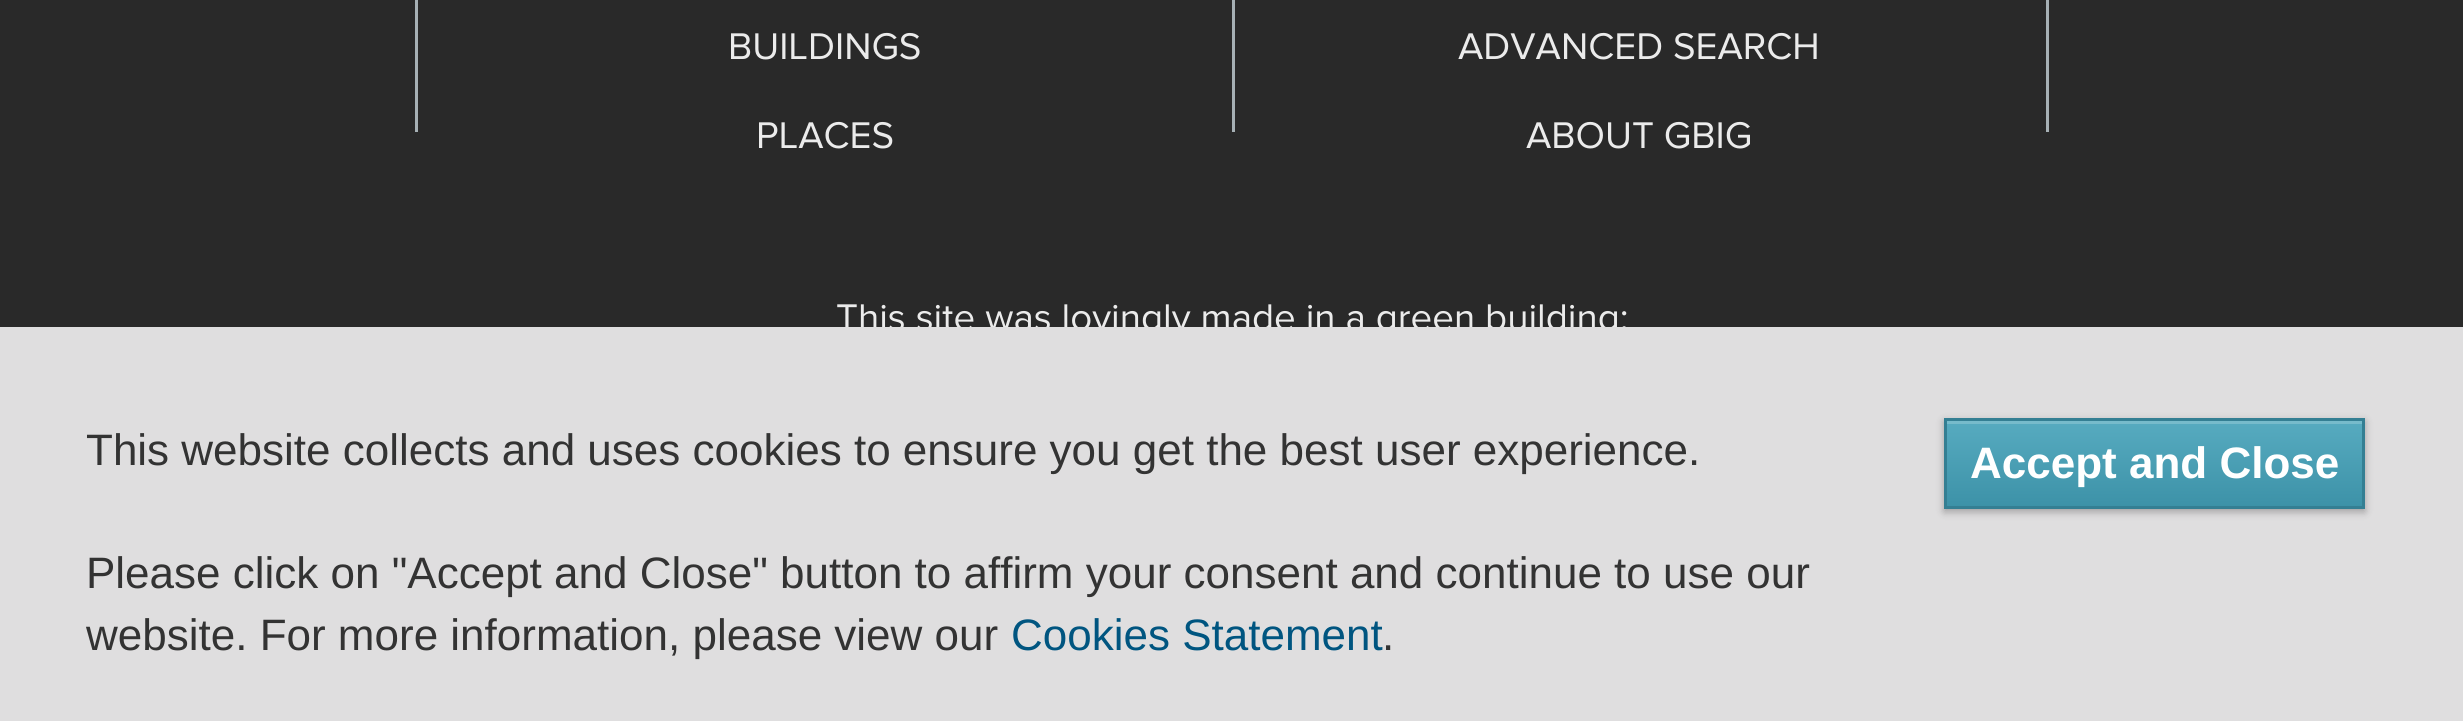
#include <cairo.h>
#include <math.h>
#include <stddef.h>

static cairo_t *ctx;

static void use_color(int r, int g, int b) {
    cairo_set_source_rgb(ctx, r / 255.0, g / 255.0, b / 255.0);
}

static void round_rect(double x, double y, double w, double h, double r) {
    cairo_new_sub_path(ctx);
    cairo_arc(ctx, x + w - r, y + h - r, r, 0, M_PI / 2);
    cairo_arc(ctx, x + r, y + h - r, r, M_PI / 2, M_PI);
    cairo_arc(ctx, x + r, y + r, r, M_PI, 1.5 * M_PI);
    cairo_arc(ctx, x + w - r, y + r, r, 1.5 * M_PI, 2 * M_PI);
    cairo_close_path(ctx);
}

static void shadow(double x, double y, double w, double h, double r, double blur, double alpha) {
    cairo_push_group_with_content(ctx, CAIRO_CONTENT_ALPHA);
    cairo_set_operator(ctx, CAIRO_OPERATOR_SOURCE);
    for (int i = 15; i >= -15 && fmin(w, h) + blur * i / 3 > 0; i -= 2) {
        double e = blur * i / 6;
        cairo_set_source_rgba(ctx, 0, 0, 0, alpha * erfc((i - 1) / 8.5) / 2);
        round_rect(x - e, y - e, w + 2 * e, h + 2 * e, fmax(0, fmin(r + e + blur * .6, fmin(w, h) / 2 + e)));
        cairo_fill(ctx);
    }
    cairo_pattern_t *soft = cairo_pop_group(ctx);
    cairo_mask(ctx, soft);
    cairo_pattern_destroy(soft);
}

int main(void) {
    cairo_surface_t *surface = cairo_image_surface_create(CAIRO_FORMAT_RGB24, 2463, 721);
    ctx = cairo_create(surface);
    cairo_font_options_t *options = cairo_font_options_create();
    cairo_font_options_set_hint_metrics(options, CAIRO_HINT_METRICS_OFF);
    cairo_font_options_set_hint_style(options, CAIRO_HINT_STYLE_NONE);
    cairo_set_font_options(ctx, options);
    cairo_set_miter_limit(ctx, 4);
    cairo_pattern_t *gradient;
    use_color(41, 41, 41);
    cairo_paint(ctx);
    use_color(166, 176, 181);
    cairo_rectangle(ctx, 415, 0, 3, 132);
    cairo_fill(ctx);
    cairo_select_font_face(ctx, "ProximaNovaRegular", CAIRO_FONT_SLANT_NORMAL, CAIRO_FONT_WEIGHT_NORMAL);
    cairo_set_font_size(ctx, 38.5);
    use_color(235, 235, 235);
    cairo_move_to(ctx, 728, 59);
    cairo_show_text(ctx, "BUILDINGS");
    cairo_move_to(ctx, 756, 148);
    cairo_show_text(ctx, "PLACES");
    use_color(166, 176, 181);
    cairo_rectangle(ctx, 1232, 0, 3, 132);
    cairo_fill(ctx);
    use_color(235, 235, 235);
    cairo_move_to(ctx, 1458, 59);
    cairo_show_text(ctx, "ADVANCED SEARCH");
    cairo_move_to(ctx, 1526, 148);
    cairo_show_text(ctx, "ABOUT GBIG");
    use_color(166, 176, 181);
    cairo_rectangle(ctx, 2046, 0, 3, 132);
    cairo_fill(ctx);
    use_color(235, 235, 235);
    cairo_move_to(ctx, 836, 330);
    cairo_show_text(ctx, "This site was lovingly made in a green building:");
    use_color(223, 222, 223);
    cairo_rectangle(ctx, 0, 327, 2463, 394);
    cairo_fill(ctx);
    cairo_select_font_face(ctx, "Liberation Sans", CAIRO_FONT_SLANT_NORMAL, CAIRO_FONT_WEIGHT_NORMAL);
    cairo_set_font_size(ctx, 44);
    use_color(51, 51, 51);
    cairo_move_to(ctx, 86, 465);
    cairo_show_text(ctx, "This website collects and uses cookies to ensure you get the best user experience.");
    cairo_move_to(ctx, 86, 588);
    cairo_show_text(ctx, "Please click on \"Accept and Close\" button to affirm your consent and continue to use our");
    cairo_move_to(ctx, 86, 650);
    cairo_show_text(ctx, "website. For more information, please view our");
    use_color(0, 85, 128);
    cairo_move_to(ctx, 1011, 650);
    cairo_show_text(ctx, "Cookies Statement");
    use_color(51, 51, 51);
    cairo_move_to(ctx, 1382, 650);
    cairo_show_text(ctx, ".");
    use_color(0, 0, 0);
    shadow(1944, 421, 421, 91, 0, 4, 0.28);
    gradient = cairo_pattern_create_linear(1947, 421, 1947, 506);
    cairo_pattern_add_color_stop_rgba(gradient, 0, 0.341, 0.671, 0.753, 1);
    cairo_pattern_add_color_stop_rgba(gradient, 1, 0.239, 0.573, 0.659, 1);
    cairo_set_source(ctx, gradient);
    cairo_pattern_destroy(gradient);
    cairo_rectangle(ctx, 1947, 424, 415, 82);
    cairo_fill(ctx);
    use_color(119, 187, 203);
    cairo_rectangle(ctx, 1947, 421, 415, 3);
    cairo_fill(ctx);
    cairo_rectangle(ctx, 1945.5, 419.5, 418, 88);
    use_color(52, 127, 147);
    cairo_set_line_width(ctx, 3);
    cairo_stroke(ctx);
    cairo_select_font_face(ctx, "Liberation Sans", CAIRO_FONT_SLANT_NORMAL, CAIRO_FONT_WEIGHT_BOLD);
    use_color(255, 255, 255);
    cairo_move_to(ctx, 1970, 478);
    cairo_show_text(ctx, "Accept and Close");
    cairo_surface_write_to_png(surface, "result.png");
    cairo_font_options_destroy(options);
    cairo_destroy(ctx);
    cairo_surface_destroy(surface);
    return 0;
}
